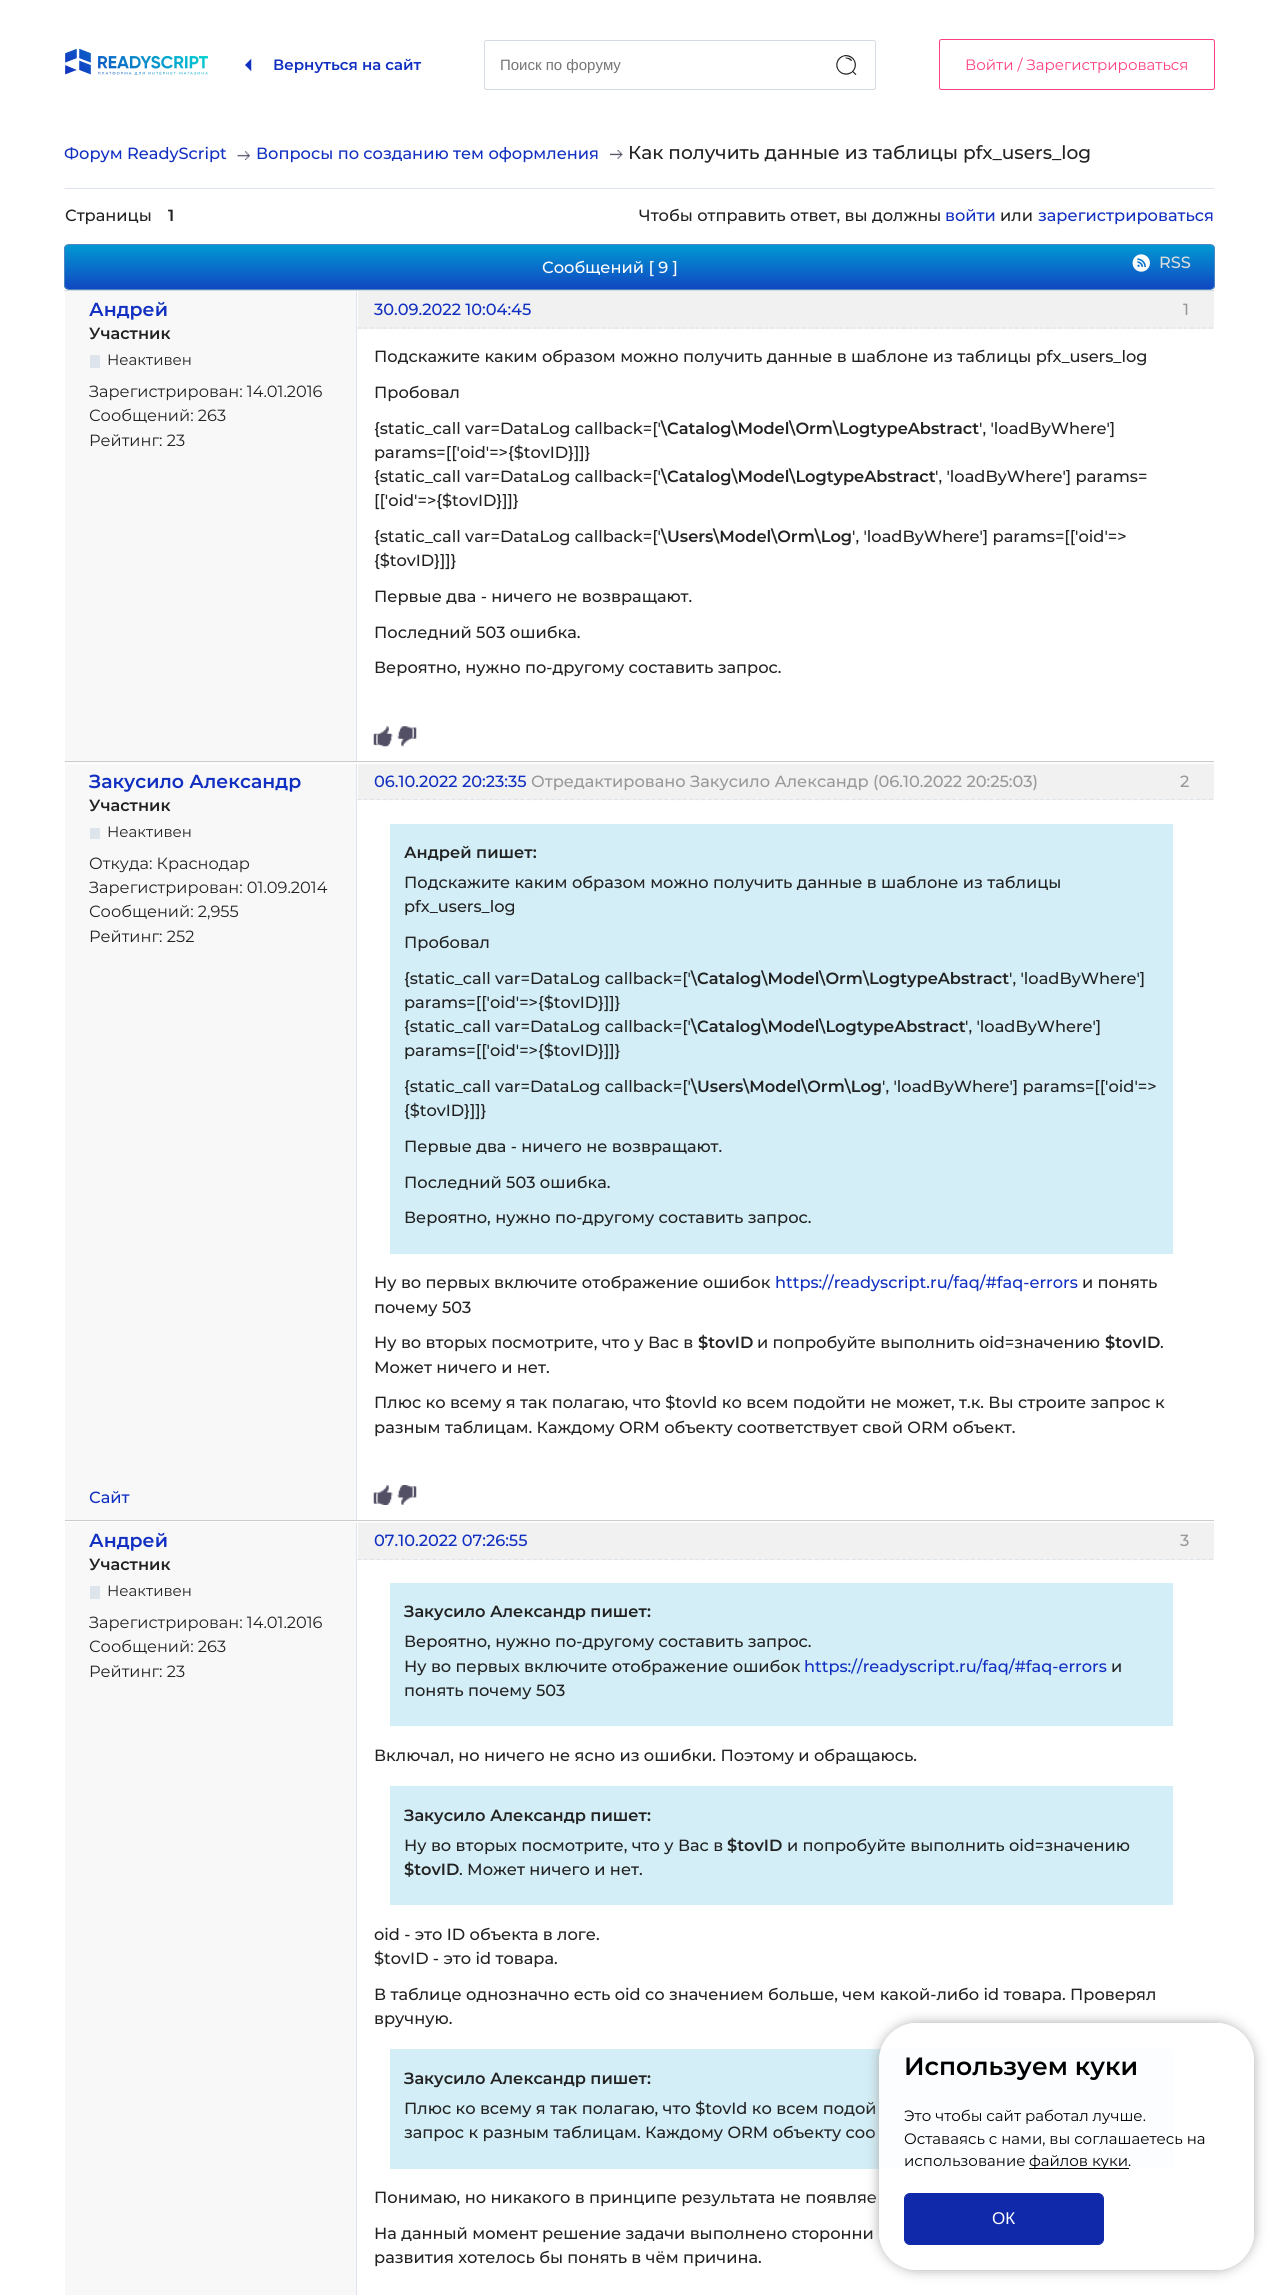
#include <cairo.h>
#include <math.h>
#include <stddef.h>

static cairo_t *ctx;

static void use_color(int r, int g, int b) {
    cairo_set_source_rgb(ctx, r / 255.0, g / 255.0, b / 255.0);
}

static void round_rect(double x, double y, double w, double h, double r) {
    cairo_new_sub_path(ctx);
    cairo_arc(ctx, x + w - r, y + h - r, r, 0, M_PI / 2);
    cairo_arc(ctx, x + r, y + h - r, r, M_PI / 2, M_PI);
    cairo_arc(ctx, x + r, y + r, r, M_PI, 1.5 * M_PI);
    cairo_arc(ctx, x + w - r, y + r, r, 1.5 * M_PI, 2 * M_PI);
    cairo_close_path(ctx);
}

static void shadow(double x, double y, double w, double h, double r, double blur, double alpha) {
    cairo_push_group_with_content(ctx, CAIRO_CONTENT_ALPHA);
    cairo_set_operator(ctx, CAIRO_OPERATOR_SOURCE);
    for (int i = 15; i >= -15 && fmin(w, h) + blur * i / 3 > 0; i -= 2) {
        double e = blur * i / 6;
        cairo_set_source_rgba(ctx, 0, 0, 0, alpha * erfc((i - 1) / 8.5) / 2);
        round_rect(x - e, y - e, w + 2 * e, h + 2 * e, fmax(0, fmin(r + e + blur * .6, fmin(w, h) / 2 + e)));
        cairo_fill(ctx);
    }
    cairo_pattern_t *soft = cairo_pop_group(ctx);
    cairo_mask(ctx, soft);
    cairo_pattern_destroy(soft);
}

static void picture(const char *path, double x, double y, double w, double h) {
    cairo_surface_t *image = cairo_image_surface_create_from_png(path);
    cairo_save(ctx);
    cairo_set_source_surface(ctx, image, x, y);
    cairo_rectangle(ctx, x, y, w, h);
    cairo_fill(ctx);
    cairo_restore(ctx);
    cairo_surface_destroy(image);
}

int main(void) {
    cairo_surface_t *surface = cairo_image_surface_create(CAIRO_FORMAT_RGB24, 1278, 2295);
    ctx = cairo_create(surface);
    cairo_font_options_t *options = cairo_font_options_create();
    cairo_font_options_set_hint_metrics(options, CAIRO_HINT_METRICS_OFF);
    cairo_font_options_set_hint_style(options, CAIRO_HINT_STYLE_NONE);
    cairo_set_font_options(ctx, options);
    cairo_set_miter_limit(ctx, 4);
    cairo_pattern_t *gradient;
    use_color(255, 255, 255);
    cairo_paint(ctx);
    picture("img1.png", 65, 49, 143, 26);
    picture("img2.png", 245, 58, 7, 14);
    cairo_select_font_face(ctx, "Montserrat SemiBold", CAIRO_FONT_SLANT_NORMAL, CAIRO_FONT_WEIGHT_NORMAL);
    cairo_set_font_size(ctx, 15);
    use_color(17, 47, 193);
    cairo_move_to(ctx, 273, 70);
    cairo_show_text(ctx, "Вернуться на сайт");
    round_rect(484.5, 40.5, 391, 49, 2);
    use_color(211, 218, 225);
    cairo_set_line_width(ctx, 1);
    cairo_stroke(ctx);
    cairo_select_font_face(ctx, "Liberation Sans", CAIRO_FONT_SLANT_NORMAL, CAIRO_FONT_WEIGHT_NORMAL);
    use_color(117, 117, 117);
    cairo_move_to(ctx, 500, 70);
    cairo_show_text(ctx, "Поиск по форуму");
    picture("img3.png", 836, 55, 21, 20);
    round_rect(939.5, 39.5, 275, 50, 2);
    use_color(255, 64, 129);
    cairo_stroke(ctx);
    cairo_select_font_face(ctx, "Montserrat", CAIRO_FONT_SLANT_NORMAL, CAIRO_FONT_WEIGHT_NORMAL);
    cairo_move_to(ctx, 965, 70);
    cairo_show_text(ctx, "Войти / Зарегистрироваться");
    cairo_select_font_face(ctx, "Montserrat Medium", CAIRO_FONT_SLANT_NORMAL, CAIRO_FONT_WEIGHT_NORMAL);
    cairo_set_font_size(ctx, 16.2);
    use_color(17, 47, 193);
    cairo_move_to(ctx, 64, 159);
    cairo_show_text(ctx, "Форум ReadyScript");
    picture("img4.png", 237, 151, 13, 9);
    cairo_move_to(ctx, 256, 159);
    cairo_show_text(ctx, "Вопросы по созданию тем оформления");
    picture("img5.png", 610, 150, 13, 9);
    cairo_set_font_size(ctx, 18.6);
    use_color(34, 34, 34);
    cairo_move_to(ctx, 628, 159);
    cairo_show_text(ctx, "Как получить данные из таблицы pfx_users_log");
    use_color(221, 228, 235);
    cairo_new_path(ctx);
    cairo_move_to(ctx, 64, 188);
    cairo_line_to(ctx, 1215, 188);
    cairo_line_to(ctx, 1214, 189);
    cairo_line_to(ctx, 65, 189);
    cairo_close_path(ctx);
    cairo_fill(ctx);
    cairo_set_font_size(ctx, 16.2);
    use_color(34, 34, 34);
    cairo_move_to(ctx, 65, 221);
    cairo_show_text(ctx, "Страницы");
    cairo_select_font_face(ctx, "Montserrat SemiBold", CAIRO_FONT_SLANT_NORMAL, CAIRO_FONT_WEIGHT_NORMAL);
    cairo_move_to(ctx, 168, 221);
    cairo_show_text(ctx, "1");
    cairo_select_font_face(ctx, "Montserrat Medium", CAIRO_FONT_SLANT_NORMAL, CAIRO_FONT_WEIGHT_NORMAL);
    cairo_move_to(ctx, 639, 221);
    cairo_show_text(ctx, "Чтобы отправить ответ, вы должны");
    use_color(17, 47, 193);
    cairo_move_to(ctx, 945, 221);
    cairo_show_text(ctx, "войти");
    use_color(34, 34, 34);
    cairo_move_to(ctx, 1000, 221);
    cairo_show_text(ctx, "или");
    use_color(17, 47, 193);
    cairo_move_to(ctx, 1038, 221);
    cairo_show_text(ctx, "зарегистрироваться");
    cairo_save(ctx);
    round_rect(64, 244, 1151, 46, 5);
    cairo_clip(ctx);
    gradient = cairo_pattern_create_linear(639, 289, 639, 245);
    cairo_pattern_add_color_stop_rgba(gradient, 0, 0.067, 0.278, 0.757, 1);
    cairo_pattern_add_color_stop_rgba(gradient, 1, 0.004, 0.6, 0.827, 1);
    cairo_set_source(ctx, gradient);
    cairo_pattern_destroy(gradient);
    cairo_rectangle(ctx, 64, 245, 1151, 44);
    cairo_fill(ctx);
    cairo_restore(ctx);
    round_rect(64.5, 244.5, 1150, 45, 4.5);
    use_color(74, 134, 193);
    cairo_stroke(ctx);
    use_color(255, 255, 255);
    cairo_move_to(ctx, 542, 273);
    cairo_show_text(ctx, "Сообщений [ 9 ]");
    picture("img6.png", 1132, 254, 18, 18);
    use_color(221, 221, 221);
    cairo_move_to(ctx, 1159, 268);
    cairo_show_text(ctx, "RSS");
    use_color(211, 218, 225);
    cairo_new_path(ctx);
    cairo_move_to(ctx, 64, 290);
    cairo_line_to(ctx, 1215, 290);
    cairo_line_to(ctx, 1214, 291);
    cairo_line_to(ctx, 65, 291);
    cairo_close_path(ctx);
    cairo_fill(ctx);
    use_color(248, 248, 248);
    cairo_rectangle(ctx, 65, 291, 1149, 472);
    cairo_fill(ctx);
    use_color(204, 204, 204);
    cairo_rectangle(ctx, 65, 761, 1149, 1);
    cairo_fill(ctx);
    use_color(255, 255, 255);
    cairo_rectangle(ctx, 357, 291, 857, 470);
    cairo_fill(ctx);
    use_color(221, 228, 235);
    cairo_rectangle(ctx, 356, 291, 1, 470);
    cairo_fill(ctx);
    use_color(241, 241, 241);
    cairo_rectangle(ctx, 358, 291, 856, 38);
    cairo_fill(ctx);
    cairo_new_path(ctx);
    cairo_move_to(ctx, 357.5, 328);
    cairo_line_to(ctx, 1214, 328);
    use_color(221, 228, 235);
    cairo_set_line_width(ctx, 1.2);
    cairo_set_dash(ctx, (double[]){3.75, 2.51}, 2, 0);
    cairo_stroke(ctx);
    cairo_select_font_face(ctx, "Montserrat SemiBold", CAIRO_FONT_SLANT_NORMAL, CAIRO_FONT_WEIGHT_NORMAL);
    cairo_set_font_size(ctx, 18.9);
    use_color(17, 47, 193);
    cairo_move_to(ctx, 89, 316);
    cairo_show_text(ctx, "Андрей");
    cairo_select_font_face(ctx, "Montserrat Medium", CAIRO_FONT_SLANT_NORMAL, CAIRO_FONT_WEIGHT_NORMAL);
    cairo_set_font_size(ctx, 16.2);
    cairo_move_to(ctx, 374, 315);
    cairo_show_text(ctx, "30.09.2022 10:04:45");
    use_color(153, 153, 153);
    cairo_move_to(ctx, 1183, 315);
    cairo_show_text(ctx, "1");
    cairo_select_font_face(ctx, "Montserrat SemiBold", CAIRO_FONT_SLANT_NORMAL, CAIRO_FONT_WEIGHT_NORMAL);
    use_color(34, 34, 34);
    cairo_move_to(ctx, 89, 339);
    cairo_show_text(ctx, "Участник");
    use_color(221, 228, 235);
    cairo_rectangle(ctx, 90, 355, 10, 13);
    cairo_fill(ctx);
    cairo_select_font_face(ctx, "Montserrat", CAIRO_FONT_SLANT_NORMAL, CAIRO_FONT_WEIGHT_NORMAL);
    cairo_set_font_size(ctx, 15);
    use_color(34, 34, 34);
    cairo_move_to(ctx, 107, 365);
    cairo_show_text(ctx, "Неактивен");
    cairo_set_font_size(ctx, 16.2);
    cairo_move_to(ctx, 89, 397);
    cairo_show_text(ctx, "Зарегистрирован: 14.01.2016");
    cairo_move_to(ctx, 89, 421);
    cairo_show_text(ctx, "Сообщений: 263");
    cairo_move_to(ctx, 89, 446);
    cairo_show_text(ctx, "Рейтинг: 23");
    cairo_select_font_face(ctx, "Montserrat Medium", CAIRO_FONT_SLANT_NORMAL, CAIRO_FONT_WEIGHT_NORMAL);
    cairo_move_to(ctx, 374, 362);
    cairo_show_text(ctx, "Подскажите каким образом можно получить данные в шаблоне из таблицы pfx_users_log");
    cairo_move_to(ctx, 374, 398);
    cairo_show_text(ctx, "Пробовал");
    cairo_move_to(ctx, 374, 434);
    cairo_show_text(ctx, "{static_call var=DataLog callback=['");
    cairo_select_font_face(ctx, "Montserrat SemiBold", CAIRO_FONT_SLANT_NORMAL, CAIRO_FONT_WEIGHT_NORMAL);
    cairo_move_to(ctx, 661, 434);
    cairo_show_text(ctx, "\\Catalog\\Model\\Orm\\LogtypeAbstract");
    cairo_select_font_face(ctx, "Montserrat Medium", CAIRO_FONT_SLANT_NORMAL, CAIRO_FONT_WEIGHT_NORMAL);
    cairo_move_to(ctx, 979, 434);
    cairo_show_text(ctx, "', 'loadByWhere']");
    cairo_move_to(ctx, 374, 458);
    cairo_show_text(ctx, "params=[['oid'=>{$tovID}]]}");
    cairo_move_to(ctx, 374, 482);
    cairo_show_text(ctx, "{static_call var=DataLog callback=['");
    cairo_select_font_face(ctx, "Montserrat SemiBold", CAIRO_FONT_SLANT_NORMAL, CAIRO_FONT_WEIGHT_NORMAL);
    cairo_move_to(ctx, 661, 482);
    cairo_show_text(ctx, "\\Catalog\\Model\\LogtypeAbstract");
    cairo_select_font_face(ctx, "Montserrat Medium", CAIRO_FONT_SLANT_NORMAL, CAIRO_FONT_WEIGHT_NORMAL);
    cairo_move_to(ctx, 935, 482);
    cairo_show_text(ctx, "', 'loadByWhere'] params=");
    cairo_move_to(ctx, 374, 506);
    cairo_show_text(ctx, "[['oid'=>{$tovID}]]}");
    cairo_move_to(ctx, 374, 542);
    cairo_show_text(ctx, "{static_call var=DataLog callback=['");
    cairo_select_font_face(ctx, "Montserrat SemiBold", CAIRO_FONT_SLANT_NORMAL, CAIRO_FONT_WEIGHT_NORMAL);
    cairo_move_to(ctx, 661, 542);
    cairo_show_text(ctx, "\\Users\\Model\\Orm\\Log");
    cairo_select_font_face(ctx, "Montserrat Medium", CAIRO_FONT_SLANT_NORMAL, CAIRO_FONT_WEIGHT_NORMAL);
    cairo_move_to(ctx, 852, 542);
    cairo_show_text(ctx, "', 'loadByWhere'] params=[['oid'=>");
    cairo_move_to(ctx, 374, 566);
    cairo_show_text(ctx, "{$tovID}]]}");
    cairo_move_to(ctx, 374, 602);
    cairo_show_text(ctx, "Первые два - ничего не возвращают.");
    cairo_move_to(ctx, 374, 638);
    cairo_show_text(ctx, "Последний 503 ошибка.");
    cairo_move_to(ctx, 374, 673);
    cairo_show_text(ctx, "Вероятно, нужно по-другому составить запрос.");
    picture("img7.png", 373, 726, 20, 21);
    picture("img8.png", 397, 726, 20, 21);
    use_color(248, 248, 248);
    cairo_rectangle(ctx, 65, 764, 291, 756);
    cairo_fill(ctx);
    use_color(204, 204, 204);
    cairo_rectangle(ctx, 65, 1520, 1149, 1);
    cairo_fill(ctx);
    use_color(221, 228, 235);
    cairo_rectangle(ctx, 356, 764, 1, 756);
    cairo_fill(ctx);
    use_color(241, 241, 241);
    cairo_rectangle(ctx, 358, 764, 856, 36);
    cairo_fill(ctx);
    cairo_new_path(ctx);
    cairo_move_to(ctx, 357.5, 799.5);
    cairo_line_to(ctx, 1214, 799.5);
    use_color(221, 228, 235);
    cairo_stroke(ctx);
    cairo_select_font_face(ctx, "Montserrat SemiBold", CAIRO_FONT_SLANT_NORMAL, CAIRO_FONT_WEIGHT_NORMAL);
    cairo_set_font_size(ctx, 18.9);
    use_color(17, 47, 193);
    cairo_move_to(ctx, 89, 788);
    cairo_show_text(ctx, "Закусило Александр");
    cairo_select_font_face(ctx, "Montserrat Medium", CAIRO_FONT_SLANT_NORMAL, CAIRO_FONT_WEIGHT_NORMAL);
    cairo_set_font_size(ctx, 16.2);
    cairo_move_to(ctx, 374, 787);
    cairo_show_text(ctx, "06.10.2022 20:23:35");
    use_color(153, 153, 153);
    cairo_move_to(ctx, 531, 787);
    cairo_show_text(ctx, "Отредактировано Закусило Александр (06.10.2022 20:25:03)");
    cairo_move_to(ctx, 1180, 787);
    cairo_show_text(ctx, "2");
    cairo_select_font_face(ctx, "Montserrat SemiBold", CAIRO_FONT_SLANT_NORMAL, CAIRO_FONT_WEIGHT_NORMAL);
    use_color(34, 34, 34);
    cairo_move_to(ctx, 89, 811);
    cairo_show_text(ctx, "Участник");
    use_color(221, 228, 235);
    cairo_rectangle(ctx, 90, 828, 10, 11);
    cairo_fill(ctx);
    cairo_select_font_face(ctx, "Montserrat", CAIRO_FONT_SLANT_NORMAL, CAIRO_FONT_WEIGHT_NORMAL);
    cairo_set_font_size(ctx, 15);
    use_color(34, 34, 34);
    cairo_move_to(ctx, 107, 837);
    cairo_show_text(ctx, "Неактивен");
    cairo_set_font_size(ctx, 16.2);
    cairo_move_to(ctx, 89, 869);
    cairo_show_text(ctx, "Откуда: Краснодар");
    cairo_move_to(ctx, 89, 893);
    cairo_show_text(ctx, "Зарегистрирован: 01.09.2014");
    cairo_move_to(ctx, 89, 917);
    cairo_show_text(ctx, "Сообщений: 2,955");
    cairo_move_to(ctx, 89, 942);
    cairo_show_text(ctx, "Рейтинг: 252");
    use_color(211, 238, 247);
    cairo_rectangle(ctx, 390, 824, 783, 430);
    cairo_fill(ctx);
    cairo_select_font_face(ctx, "Montserrat SemiBold", CAIRO_FONT_SLANT_NORMAL, CAIRO_FONT_WEIGHT_NORMAL);
    use_color(34, 34, 34);
    cairo_move_to(ctx, 404, 858);
    cairo_show_text(ctx, "Андрей пишет:");
    cairo_select_font_face(ctx, "Montserrat Medium", CAIRO_FONT_SLANT_NORMAL, CAIRO_FONT_WEIGHT_NORMAL);
    cairo_move_to(ctx, 404, 888);
    cairo_show_text(ctx, "Подскажите каким образом можно получить данные в шаблоне из таблицы");
    cairo_move_to(ctx, 404, 912);
    cairo_show_text(ctx, "pfx_users_log");
    cairo_move_to(ctx, 404, 948);
    cairo_show_text(ctx, "Пробовал");
    cairo_move_to(ctx, 404, 984);
    cairo_show_text(ctx, "{static_call var=DataLog callback=['");
    cairo_select_font_face(ctx, "Montserrat SemiBold", CAIRO_FONT_SLANT_NORMAL, CAIRO_FONT_WEIGHT_NORMAL);
    cairo_move_to(ctx, 691, 984);
    cairo_show_text(ctx, "\\Catalog\\Model\\Orm\\LogtypeAbstract");
    cairo_select_font_face(ctx, "Montserrat Medium", CAIRO_FONT_SLANT_NORMAL, CAIRO_FONT_WEIGHT_NORMAL);
    cairo_move_to(ctx, 1009, 984);
    cairo_show_text(ctx, "', 'loadByWhere']");
    cairo_move_to(ctx, 404, 1008);
    cairo_show_text(ctx, "params=[['oid'=>{$tovID}]]}");
    cairo_move_to(ctx, 404, 1032);
    cairo_show_text(ctx, "{static_call var=DataLog callback=['");
    cairo_select_font_face(ctx, "Montserrat SemiBold", CAIRO_FONT_SLANT_NORMAL, CAIRO_FONT_WEIGHT_NORMAL);
    cairo_move_to(ctx, 691, 1032);
    cairo_show_text(ctx, "\\Catalog\\Model\\LogtypeAbstract");
    cairo_select_font_face(ctx, "Montserrat Medium", CAIRO_FONT_SLANT_NORMAL, CAIRO_FONT_WEIGHT_NORMAL);
    cairo_move_to(ctx, 965, 1032);
    cairo_show_text(ctx, "', 'loadByWhere']");
    cairo_move_to(ctx, 404, 1056);
    cairo_show_text(ctx, "params=[['oid'=>{$tovID}]]}");
    cairo_move_to(ctx, 404, 1092);
    cairo_show_text(ctx, "{static_call var=DataLog callback=['");
    cairo_select_font_face(ctx, "Montserrat SemiBold", CAIRO_FONT_SLANT_NORMAL, CAIRO_FONT_WEIGHT_NORMAL);
    cairo_move_to(ctx, 691, 1092);
    cairo_show_text(ctx, "\\Users\\Model\\Orm\\Log");
    cairo_select_font_face(ctx, "Montserrat Medium", CAIRO_FONT_SLANT_NORMAL, CAIRO_FONT_WEIGHT_NORMAL);
    cairo_move_to(ctx, 882, 1092);
    cairo_show_text(ctx, "', 'loadByWhere'] params=[['oid'=>");
    cairo_move_to(ctx, 404, 1116);
    cairo_show_text(ctx, "{$tovID}]]}");
    cairo_move_to(ctx, 404, 1152);
    cairo_show_text(ctx, "Первые два - ничего не возвращают.");
    cairo_move_to(ctx, 404, 1188);
    cairo_show_text(ctx, "Последний 503 ошибка.");
    cairo_move_to(ctx, 404, 1223);
    cairo_show_text(ctx, "Вероятно, нужно по-другому составить запрос.");
    cairo_move_to(ctx, 374, 1288);
    cairo_show_text(ctx, "Ну во первых включите отображение ошибок");
    use_color(17, 47, 193);
    cairo_move_to(ctx, 775, 1288);
    cairo_show_text(ctx, "https://readyscript.ru/faq/#faq-errors");
    use_color(34, 34, 34);
    cairo_move_to(ctx, 1082, 1288);
    cairo_show_text(ctx, "и понять");
    cairo_move_to(ctx, 374, 1313);
    cairo_show_text(ctx, "почему 503");
    cairo_move_to(ctx, 374, 1348);
    cairo_show_text(ctx, "Ну во вторых посмотрите, что у Вас в");
    cairo_select_font_face(ctx, "Montserrat SemiBold", CAIRO_FONT_SLANT_NORMAL, CAIRO_FONT_WEIGHT_NORMAL);
    cairo_move_to(ctx, 698, 1348);
    cairo_show_text(ctx, "$tovID");
    cairo_select_font_face(ctx, "Montserrat Medium", CAIRO_FONT_SLANT_NORMAL, CAIRO_FONT_WEIGHT_NORMAL);
    cairo_move_to(ctx, 757, 1348);
    cairo_show_text(ctx, "и попробуйте выполнить oid=значению");
    cairo_select_font_face(ctx, "Montserrat SemiBold", CAIRO_FONT_SLANT_NORMAL, CAIRO_FONT_WEIGHT_NORMAL);
    cairo_move_to(ctx, 1105, 1348);
    cairo_show_text(ctx, "$tovID");
    cairo_select_font_face(ctx, "Montserrat Medium", CAIRO_FONT_SLANT_NORMAL, CAIRO_FONT_WEIGHT_NORMAL);
    cairo_move_to(ctx, 1160, 1348);
    cairo_show_text(ctx, ".");
    cairo_move_to(ctx, 374, 1373);
    cairo_show_text(ctx, "Может ничего и нет.");
    cairo_move_to(ctx, 374, 1408);
    cairo_show_text(ctx, "Плюс ко всему я так полагаю, что $tovId ко всем подойти не может, т.к. Вы строите запрос к");
    cairo_move_to(ctx, 374, 1433);
    cairo_show_text(ctx, "разным таблицам. Каждому ORM объекту соответствует свой ORM объект.");
    use_color(17, 47, 193);
    cairo_move_to(ctx, 89, 1503);
    cairo_show_text(ctx, "Сайт");
    picture("img9.png", 373, 1485, 20, 20);
    picture("img10.png", 397, 1485, 20, 20);
    use_color(248, 248, 248);
    cairo_rectangle(ctx, 65, 1522, 1149, 773);
    cairo_fill(ctx);
    use_color(255, 255, 255);
    cairo_rectangle(ctx, 357, 1523, 857, 772);
    cairo_fill(ctx);
    use_color(221, 228, 235);
    cairo_rectangle(ctx, 356, 1523, 1, 772);
    cairo_fill(ctx);
    use_color(241, 241, 241);
    cairo_rectangle(ctx, 358, 1523, 856, 37);
    cairo_fill(ctx);
    cairo_new_path(ctx);
    cairo_move_to(ctx, 357.5, 1559.5);
    cairo_line_to(ctx, 1214, 1559.5);
    use_color(221, 228, 235);
    cairo_stroke(ctx);
    cairo_select_font_face(ctx, "Montserrat SemiBold", CAIRO_FONT_SLANT_NORMAL, CAIRO_FONT_WEIGHT_NORMAL);
    cairo_set_font_size(ctx, 18.9);
    use_color(17, 47, 193);
    cairo_move_to(ctx, 89, 1547);
    cairo_show_text(ctx, "Андрей");
    cairo_select_font_face(ctx, "Montserrat Medium", CAIRO_FONT_SLANT_NORMAL, CAIRO_FONT_WEIGHT_NORMAL);
    cairo_set_font_size(ctx, 16.2);
    cairo_move_to(ctx, 374, 1546);
    cairo_show_text(ctx, "07.10.2022 07:26:55");
    use_color(153, 153, 153);
    cairo_move_to(ctx, 1180, 1546);
    cairo_show_text(ctx, "3");
    cairo_select_font_face(ctx, "Montserrat SemiBold", CAIRO_FONT_SLANT_NORMAL, CAIRO_FONT_WEIGHT_NORMAL);
    use_color(34, 34, 34);
    cairo_move_to(ctx, 89, 1570);
    cairo_show_text(ctx, "Участник");
    use_color(221, 228, 235);
    cairo_rectangle(ctx, 90, 1586, 10, 13);
    cairo_fill(ctx);
    cairo_select_font_face(ctx, "Montserrat", CAIRO_FONT_SLANT_NORMAL, CAIRO_FONT_WEIGHT_NORMAL);
    cairo_set_font_size(ctx, 15);
    use_color(34, 34, 34);
    cairo_move_to(ctx, 107, 1596);
    cairo_show_text(ctx, "Неактивен");
    cairo_set_font_size(ctx, 16.2);
    cairo_move_to(ctx, 89, 1628);
    cairo_show_text(ctx, "Зарегистрирован: 14.01.2016");
    cairo_move_to(ctx, 89, 1652);
    cairo_show_text(ctx, "Сообщений: 263");
    cairo_move_to(ctx, 89, 1677);
    cairo_show_text(ctx, "Рейтинг: 23");
    use_color(211, 238, 247);
    cairo_rectangle(ctx, 390, 1583, 783, 143);
    cairo_fill(ctx);
    cairo_select_font_face(ctx, "Montserrat SemiBold", CAIRO_FONT_SLANT_NORMAL, CAIRO_FONT_WEIGHT_NORMAL);
    use_color(34, 34, 34);
    cairo_move_to(ctx, 404, 1617);
    cairo_show_text(ctx, "Закусило Александр пишет:");
    cairo_select_font_face(ctx, "Montserrat Medium", CAIRO_FONT_SLANT_NORMAL, CAIRO_FONT_WEIGHT_NORMAL);
    cairo_move_to(ctx, 404, 1647);
    cairo_show_text(ctx, "Вероятно, нужно по-другому составить запрос.");
    cairo_move_to(ctx, 404, 1672);
    cairo_show_text(ctx, "Ну во первых включите отображение ошибок");
    use_color(17, 47, 193);
    cairo_move_to(ctx, 804, 1672);
    cairo_show_text(ctx, "https://readyscript.ru/faq/#faq-errors");
    use_color(34, 34, 34);
    cairo_move_to(ctx, 1111, 1672);
    cairo_show_text(ctx, "и");
    cairo_move_to(ctx, 404, 1696);
    cairo_show_text(ctx, "понять почему 503");
    cairo_move_to(ctx, 374, 1761);
    cairo_show_text(ctx, "Включал, но ничего не ясно из ошибки. Поэтому и обращаюсь.");
    use_color(211, 238, 247);
    cairo_rectangle(ctx, 390, 1786, 783, 119);
    cairo_fill(ctx);
    cairo_select_font_face(ctx, "Montserrat SemiBold", CAIRO_FONT_SLANT_NORMAL, CAIRO_FONT_WEIGHT_NORMAL);
    use_color(34, 34, 34);
    cairo_move_to(ctx, 404, 1821);
    cairo_show_text(ctx, "Закусило Александр пишет:");
    cairo_select_font_face(ctx, "Montserrat Medium", CAIRO_FONT_SLANT_NORMAL, CAIRO_FONT_WEIGHT_NORMAL);
    cairo_move_to(ctx, 404, 1851);
    cairo_show_text(ctx, "Ну во вторых посмотрите, что у Вас в");
    cairo_select_font_face(ctx, "Montserrat SemiBold", CAIRO_FONT_SLANT_NORMAL, CAIRO_FONT_WEIGHT_NORMAL);
    cairo_move_to(ctx, 727, 1851);
    cairo_show_text(ctx, "$tovID");
    cairo_select_font_face(ctx, "Montserrat Medium", CAIRO_FONT_SLANT_NORMAL, CAIRO_FONT_WEIGHT_NORMAL);
    cairo_move_to(ctx, 787, 1851);
    cairo_show_text(ctx, "и попробуйте выполнить oid=значению");
    cairo_select_font_face(ctx, "Montserrat SemiBold", CAIRO_FONT_SLANT_NORMAL, CAIRO_FONT_WEIGHT_NORMAL);
    cairo_move_to(ctx, 404, 1875);
    cairo_show_text(ctx, "$tovID");
    cairo_select_font_face(ctx, "Montserrat Medium", CAIRO_FONT_SLANT_NORMAL, CAIRO_FONT_WEIGHT_NORMAL);
    cairo_move_to(ctx, 459, 1875);
    cairo_show_text(ctx, ". Может ничего и нет.");
    cairo_move_to(ctx, 374, 1940);
    cairo_show_text(ctx, "oid - это ID объекта в логе.");
    cairo_move_to(ctx, 374, 1964);
    cairo_show_text(ctx, "$tovID - это id товара.");
    cairo_move_to(ctx, 374, 2000);
    cairo_show_text(ctx, "В таблице однозначно есть oid со значением больше, чем какой-либо id товара. Проверял");
    cairo_move_to(ctx, 374, 2024);
    cairo_show_text(ctx, "вручную.");
    use_color(211, 238, 247);
    cairo_rectangle(ctx, 390, 2049, 783, 120);
    cairo_fill(ctx);
    cairo_select_font_face(ctx, "Montserrat SemiBold", CAIRO_FONT_SLANT_NORMAL, CAIRO_FONT_WEIGHT_NORMAL);
    use_color(34, 34, 34);
    cairo_move_to(ctx, 404, 2084);
    cairo_show_text(ctx, "Закусило Александр пишет:");
    cairo_select_font_face(ctx, "Montserrat Medium", CAIRO_FONT_SLANT_NORMAL, CAIRO_FONT_WEIGHT_NORMAL);
    cairo_move_to(ctx, 404, 2114);
    cairo_show_text(ctx, "Плюс ко всему я так полагаю, что $tovId ко всем подой");
    cairo_move_to(ctx, 404, 2138);
    cairo_show_text(ctx, "запрос к разным таблицам. Каждому ORM объекту соо");
    cairo_move_to(ctx, 374, 2203);
    cairo_show_text(ctx, "Понимаю, но никакого в принципе результата не появляе");
    cairo_move_to(ctx, 374, 2239);
    cairo_show_text(ctx, "На данный момент решение задачи выполнено сторонни");
    cairo_move_to(ctx, 374, 2263);
    cairo_show_text(ctx, "развития хотелось бы понять в чём причина.");
    cairo_save(ctx);
    cairo_set_fill_rule(ctx, CAIRO_FILL_RULE_EVEN_ODD);
    cairo_new_path(ctx);
    cairo_move_to(ctx, 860, 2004);
    cairo_line_to(ctx, 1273, 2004);
    cairo_line_to(ctx, 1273, 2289);
    cairo_line_to(ctx, 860, 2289);
    cairo_close_path(ctx);
    cairo_move_to(ctx, 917, 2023);
    cairo_line_to(ctx, 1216, 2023);
    cairo_curve_to(ctx, 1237, 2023, 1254, 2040, 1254, 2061);
    cairo_line_to(ctx, 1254, 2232);
    cairo_curve_to(ctx, 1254, 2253, 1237, 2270, 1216, 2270);
    cairo_line_to(ctx, 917, 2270);
    cairo_curve_to(ctx, 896, 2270, 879, 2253, 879, 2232);
    cairo_line_to(ctx, 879, 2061);
    cairo_curve_to(ctx, 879, 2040, 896, 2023, 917, 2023);
    cairo_close_path(ctx);
    cairo_clip(ctx);
    use_color(170, 170, 170);
    shadow(879, 2023, 375, 247, 38, 6, 1);
    cairo_restore(ctx);
    cairo_set_source_rgba(ctx, 1, 1, 1, 0.9);
    round_rect(879, 2023, 375, 247, 38);
    cairo_fill(ctx);
    cairo_select_font_face(ctx, "Montserrat SemiBold", CAIRO_FONT_SLANT_NORMAL, CAIRO_FONT_WEIGHT_NORMAL);
    cairo_set_font_size(ctx, 25);
    use_color(0, 0, 0);
    cairo_move_to(ctx, 904, 2075);
    cairo_show_text(ctx, "Используем куки");
    cairo_select_font_face(ctx, "Montserrat", CAIRO_FONT_SLANT_NORMAL, CAIRO_FONT_WEIGHT_NORMAL);
    cairo_set_font_size(ctx, 15);
    cairo_move_to(ctx, 904, 2121);
    cairo_show_text(ctx, "Это чтобы сайт работал лучше.");
    cairo_move_to(ctx, 904, 2144);
    cairo_show_text(ctx, "Оставаясь с нами, вы соглашаетесь на");
    cairo_move_to(ctx, 904, 2166);
    cairo_show_text(ctx, "использование");
    cairo_rectangle(ctx, 1029, 2168, 100, 1);
    cairo_fill(ctx);
    cairo_move_to(ctx, 1029, 2166);
    cairo_show_text(ctx, "файлов куки.");
    use_color(15, 41, 170);
    round_rect(904.5, 2193.5, 199, 51, 5.5);
    cairo_fill_preserve(ctx);
    cairo_set_line_width(ctx, 1);
    cairo_set_dash(ctx, NULL, 0, 0);
    cairo_stroke(ctx);
    cairo_select_font_face(ctx, "Liberation Sans", CAIRO_FONT_SLANT_NORMAL, CAIRO_FONT_WEIGHT_NORMAL);
    cairo_set_font_size(ctx, 17);
    use_color(255, 255, 255);
    cairo_move_to(ctx, 992, 2224);
    cairo_show_text(ctx, "ОК");
    cairo_surface_write_to_png(surface, "result.png");
    cairo_font_options_destroy(options);
    cairo_destroy(ctx);
    cairo_surface_destroy(surface);
    return 0;
}
